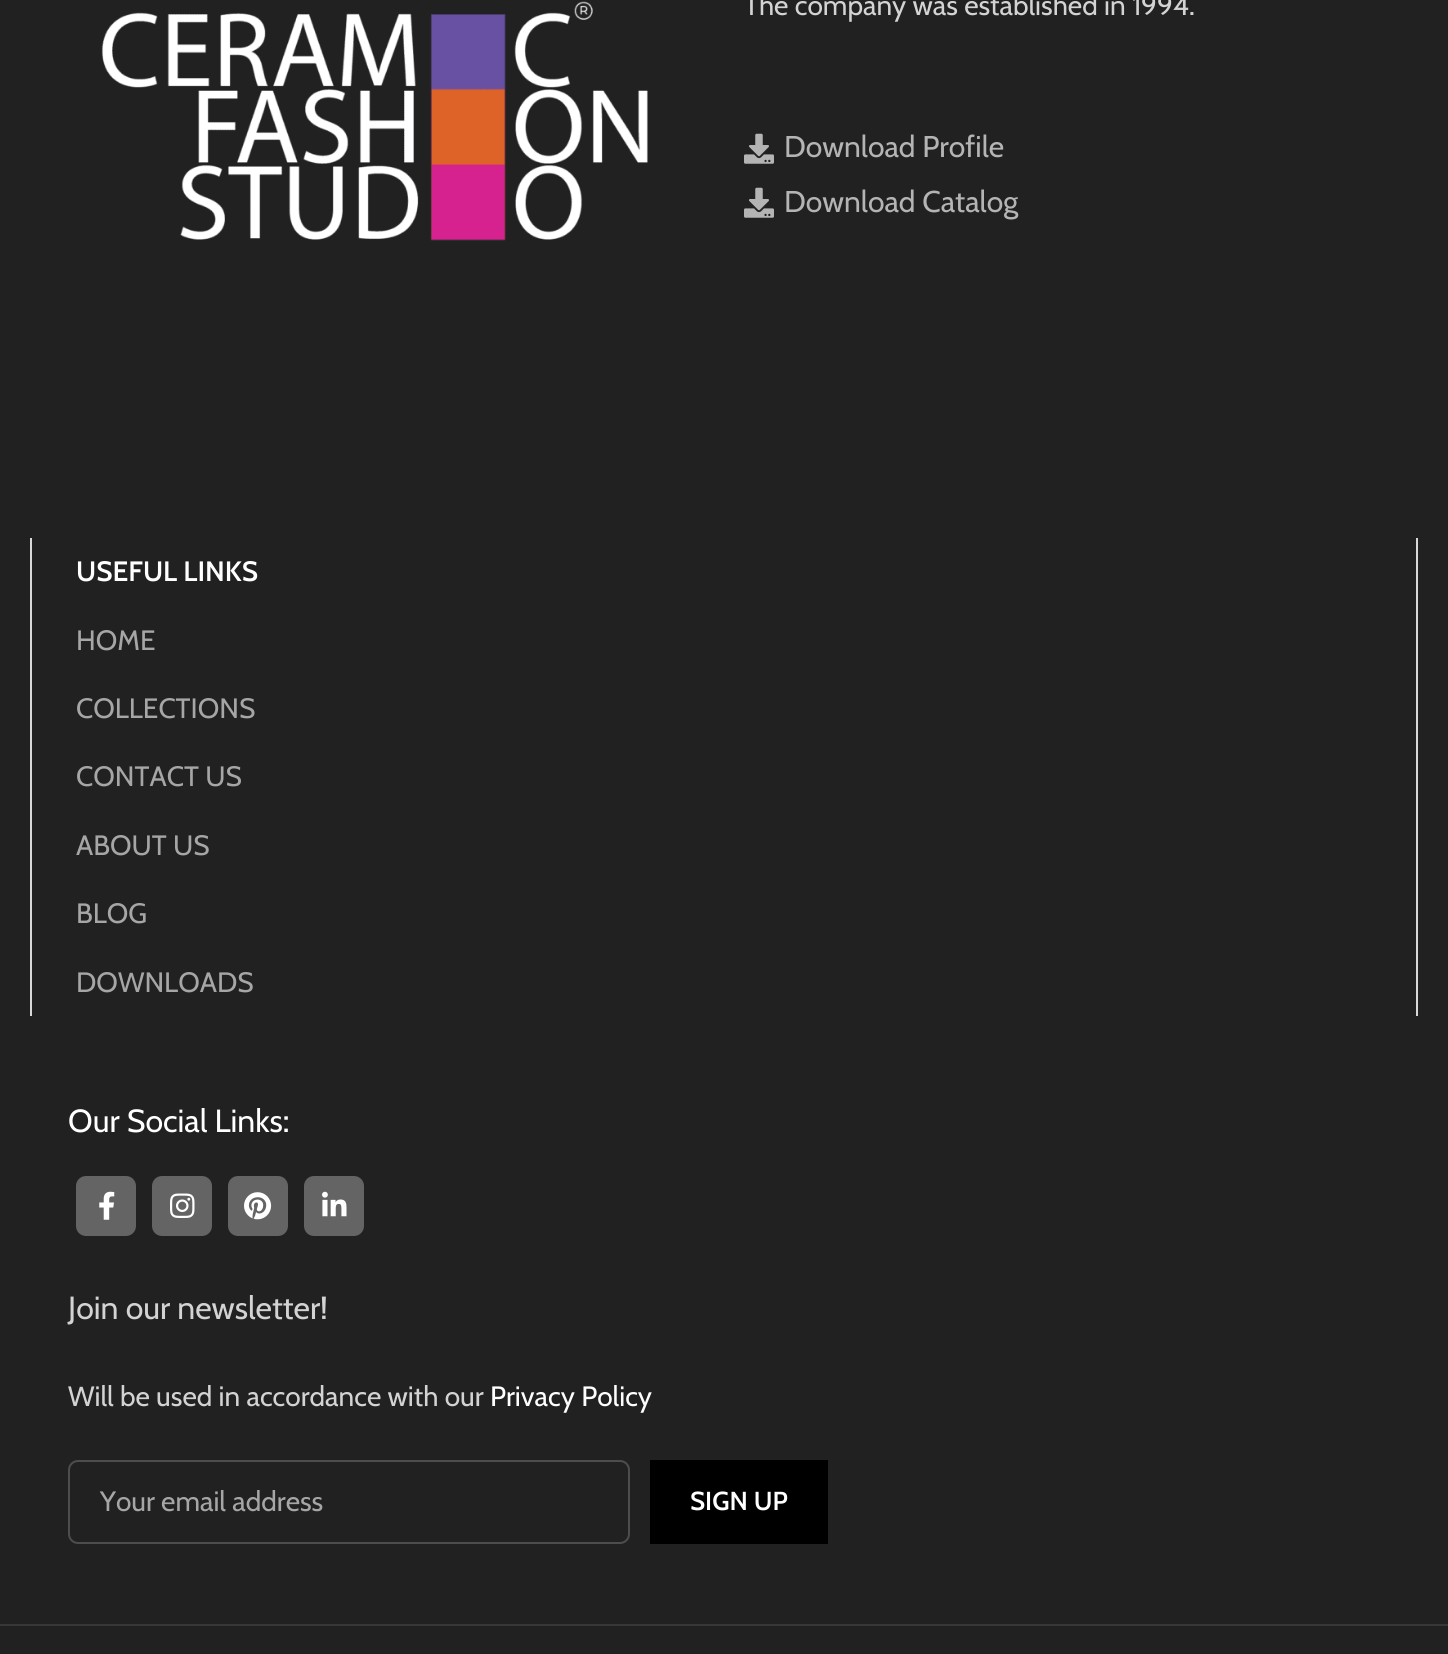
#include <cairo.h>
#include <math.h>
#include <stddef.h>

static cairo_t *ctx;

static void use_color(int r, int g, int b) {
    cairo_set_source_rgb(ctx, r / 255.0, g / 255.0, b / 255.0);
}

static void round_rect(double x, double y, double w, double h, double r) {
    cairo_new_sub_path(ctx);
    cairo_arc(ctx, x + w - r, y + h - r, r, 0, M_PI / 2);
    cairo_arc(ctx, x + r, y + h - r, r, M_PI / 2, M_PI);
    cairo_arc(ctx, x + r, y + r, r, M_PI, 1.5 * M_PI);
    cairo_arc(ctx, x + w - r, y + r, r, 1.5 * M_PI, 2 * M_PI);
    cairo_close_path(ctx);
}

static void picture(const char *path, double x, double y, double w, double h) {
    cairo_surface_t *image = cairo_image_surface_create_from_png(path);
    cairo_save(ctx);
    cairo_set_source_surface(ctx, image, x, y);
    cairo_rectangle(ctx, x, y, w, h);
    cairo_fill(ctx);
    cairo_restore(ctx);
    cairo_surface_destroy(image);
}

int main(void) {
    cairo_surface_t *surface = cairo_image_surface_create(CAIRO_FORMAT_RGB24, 1448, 1654);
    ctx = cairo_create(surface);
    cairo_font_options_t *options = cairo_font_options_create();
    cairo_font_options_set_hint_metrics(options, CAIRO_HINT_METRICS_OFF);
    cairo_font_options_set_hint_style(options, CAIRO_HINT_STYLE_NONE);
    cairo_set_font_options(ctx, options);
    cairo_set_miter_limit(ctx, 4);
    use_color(33, 33, 33);
    cairo_paint(ctx);
    use_color(55, 55, 55);
    cairo_rectangle(ctx, 0, 1624, 1448, 2);
    cairo_fill(ctx);
    picture("img1.png", 101, 1, 547, 240);
    cairo_select_font_face(ctx, "Cabin", CAIRO_FONT_SLANT_NORMAL, CAIRO_FONT_WEIGHT_NORMAL);
    cairo_set_font_size(ctx, 28);
    use_color(211, 211, 211);
    cairo_move_to(ctx, 744, 15);
    cairo_show_text(ctx, "The company was established in 1994.");
    picture("img2.png", 744, 133, 30, 31);
    cairo_set_font_size(ctx, 30);
    use_color(180, 180, 180);
    cairo_move_to(ctx, 784, 157);
    cairo_show_text(ctx, "Download Profile");
    picture("img2.png", 744, 187, 30, 31);
    cairo_move_to(ctx, 784, 212);
    cairo_show_text(ctx, "Download Catalog");
    use_color(216, 216, 216);
    cairo_rectangle(ctx, 1416, 538, 2, 478);
    cairo_fill(ctx);
    cairo_rectangle(ctx, 30, 538, 2, 478);
    cairo_fill(ctx);
    cairo_select_font_face(ctx, "Cabin SemiBold", CAIRO_FONT_SLANT_NORMAL, CAIRO_FONT_WEIGHT_NORMAL);
    cairo_set_font_size(ctx, 28);
    use_color(255, 255, 255);
    cairo_move_to(ctx, 76, 581);
    cairo_show_text(ctx, "USEFUL LINKS");
    cairo_select_font_face(ctx, "Cabin", CAIRO_FONT_SLANT_NORMAL, CAIRO_FONT_WEIGHT_NORMAL);
    use_color(166, 166, 166);
    cairo_move_to(ctx, 76, 650);
    cairo_show_text(ctx, "HOME");
    cairo_move_to(ctx, 76, 718);
    cairo_show_text(ctx, "COLLECTIONS");
    cairo_move_to(ctx, 76, 786);
    cairo_show_text(ctx, "CONTACT US");
    cairo_move_to(ctx, 76, 855);
    cairo_show_text(ctx, "ABOUT US");
    cairo_move_to(ctx, 76, 923);
    cairo_show_text(ctx, "BLOG");
    cairo_move_to(ctx, 76, 992);
    cairo_show_text(ctx, "DOWNLOADS");
    cairo_set_font_size(ctx, 32);
    use_color(255, 255, 255);
    cairo_move_to(ctx, 68, 1132);
    cairo_show_text(ctx, "Our Social Links:");
    use_color(100, 100, 100);
    round_rect(76, 1176, 60, 60, 10);
    cairo_fill(ctx);
    picture("img3.png", 99, 1191, 16, 29);
    round_rect(152, 1176, 60, 60, 10);
    cairo_fill(ctx);
    picture("img4.png", 170, 1193, 25, 25);
    round_rect(228, 1176, 60, 60, 10);
    cairo_fill(ctx);
    picture("img5.png", 244, 1192, 28, 28);
    round_rect(304, 1176, 60, 60, 10);
    cairo_fill(ctx);
    picture("img6.png", 322, 1191, 25, 26);
    use_color(211, 211, 211);
    cairo_move_to(ctx, 68, 1319);
    cairo_show_text(ctx, "Join our newsletter!");
    cairo_set_font_size(ctx, 28);
    cairo_move_to(ctx, 68, 1406);
    cairo_show_text(ctx, "Will be used in accordance with our");
    use_color(255, 255, 255);
    cairo_move_to(ctx, 490, 1406);
    cairo_show_text(ctx, "Privacy Policy");
    round_rect(69, 1461, 560, 82, 9);
    use_color(77, 77, 77);
    cairo_stroke(ctx);
    use_color(166, 166, 166);
    cairo_move_to(ctx, 100, 1511);
    cairo_show_text(ctx, "Your email address");
    use_color(0, 0, 0);
    cairo_rectangle(ctx, 650, 1460, 178, 84);
    cairo_fill(ctx);
    cairo_select_font_face(ctx, "Cabin SemiBold", CAIRO_FONT_SLANT_NORMAL, CAIRO_FONT_WEIGHT_NORMAL);
    cairo_set_font_size(ctx, 26);
    use_color(255, 255, 255);
    cairo_move_to(ctx, 690, 1510);
    cairo_show_text(ctx, "SIGN UP");
    cairo_surface_write_to_png(surface, "result.png");
    cairo_font_options_destroy(options);
    cairo_destroy(ctx);
    cairo_surface_destroy(surface);
    return 0;
}
